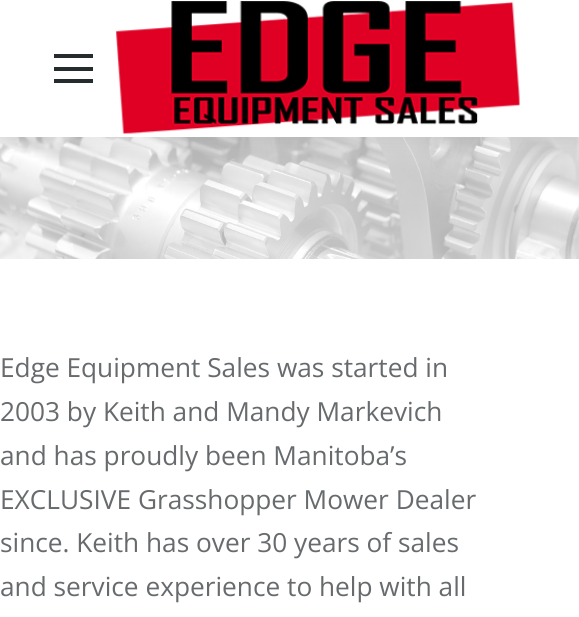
#include <cairo.h>
#include <math.h>
#include <stddef.h>

static cairo_t *ctx;

static void use_color(int r, int g, int b) {
    cairo_set_source_rgb(ctx, r / 255.0, g / 255.0, b / 255.0);
}

static void round_rect(double x, double y, double w, double h, double r) {
    cairo_new_sub_path(ctx);
    cairo_arc(ctx, x + w - r, y + h - r, r, 0, M_PI / 2);
    cairo_arc(ctx, x + r, y + h - r, r, M_PI / 2, M_PI);
    cairo_arc(ctx, x + r, y + r, r, M_PI, 1.5 * M_PI);
    cairo_arc(ctx, x + w - r, y + r, r, 1.5 * M_PI, 2 * M_PI);
    cairo_close_path(ctx);
}

static void shadow(double x, double y, double w, double h, double r, double blur, double alpha) {
    cairo_push_group_with_content(ctx, CAIRO_CONTENT_ALPHA);
    cairo_set_operator(ctx, CAIRO_OPERATOR_SOURCE);
    for (int i = 15; i >= -15 && fmin(w, h) + blur * i / 3 > 0; i -= 2) {
        double e = blur * i / 6;
        cairo_set_source_rgba(ctx, 0, 0, 0, alpha * erfc((i - 1) / 8.5) / 2);
        round_rect(x - e, y - e, w + 2 * e, h + 2 * e, fmax(0, fmin(r + e + blur * .6, fmin(w, h) / 2 + e)));
        cairo_fill(ctx);
    }
    cairo_pattern_t *soft = cairo_pop_group(ctx);
    cairo_mask(ctx, soft);
    cairo_pattern_destroy(soft);
}

static void picture(const char *path, double x, double y, double w, double h) {
    cairo_surface_t *image = cairo_image_surface_create_from_png(path);
    cairo_save(ctx);
    cairo_set_source_surface(ctx, image, x, y);
    cairo_rectangle(ctx, x, y, w, h);
    cairo_fill(ctx);
    cairo_restore(ctx);
    cairo_surface_destroy(image);
}

int main(void) {
    cairo_surface_t *surface = cairo_image_surface_create(CAIRO_FORMAT_RGB24, 579, 617);
    ctx = cairo_create(surface);
    cairo_font_options_t *options = cairo_font_options_create();
    cairo_font_options_set_hint_metrics(options, CAIRO_HINT_METRICS_OFF);
    cairo_font_options_set_hint_style(options, CAIRO_HINT_STYLE_NONE);
    cairo_set_font_options(ctx, options);
    cairo_set_miter_limit(ctx, 4);
    use_color(255, 255, 255);
    cairo_paint(ctx);
    picture("img2.png", 0, 137, 579, 122);
    use_color(0, 0, 0);
    shadow(-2, -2, 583, 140, 0, 13, 0.07);
    use_color(255, 255, 255);
    cairo_rectangle(ctx, 0, 0, 579, 137);
    cairo_fill(ctx);
    use_color(38, 43, 46);
    cairo_rectangle(ctx, 54, 54, 39, 4);
    cairo_fill(ctx);
    cairo_rectangle(ctx, 54, 67, 39, 4);
    cairo_fill(ctx);
    cairo_rectangle(ctx, 54, 79, 39, 4);
    cairo_fill(ctx);
    picture("img1.png", 116, 1, 404, 133);
    cairo_select_font_face(ctx, "Open Sans", CAIRO_FONT_SLANT_NORMAL, CAIRO_FONT_WEIGHT_NORMAL);
    cairo_set_font_size(ctx, 26.25);
    use_color(103, 107, 109);
    cairo_move_to(ctx, 0, 377);
    cairo_show_text(ctx, "Edge Equipment Sales was started in");
    cairo_move_to(ctx, 0, 421);
    cairo_show_text(ctx, "2003 by Keith and Mandy Markevich");
    cairo_move_to(ctx, 0, 465);
    cairo_show_text(ctx, "and has proudly been Manitoba’s");
    cairo_move_to(ctx, 0, 509);
    cairo_show_text(ctx, "EXCLUSIVE Grasshopper Mower Dealer");
    cairo_move_to(ctx, 0, 552);
    cairo_show_text(ctx, "since. Keith has over 30 years of sales");
    cairo_move_to(ctx, 0, 596);
    cairo_show_text(ctx, "and service experience to help with all");
    cairo_surface_write_to_png(surface, "result.png");
    cairo_font_options_destroy(options);
    cairo_destroy(ctx);
    cairo_surface_destroy(surface);
    return 0;
}
